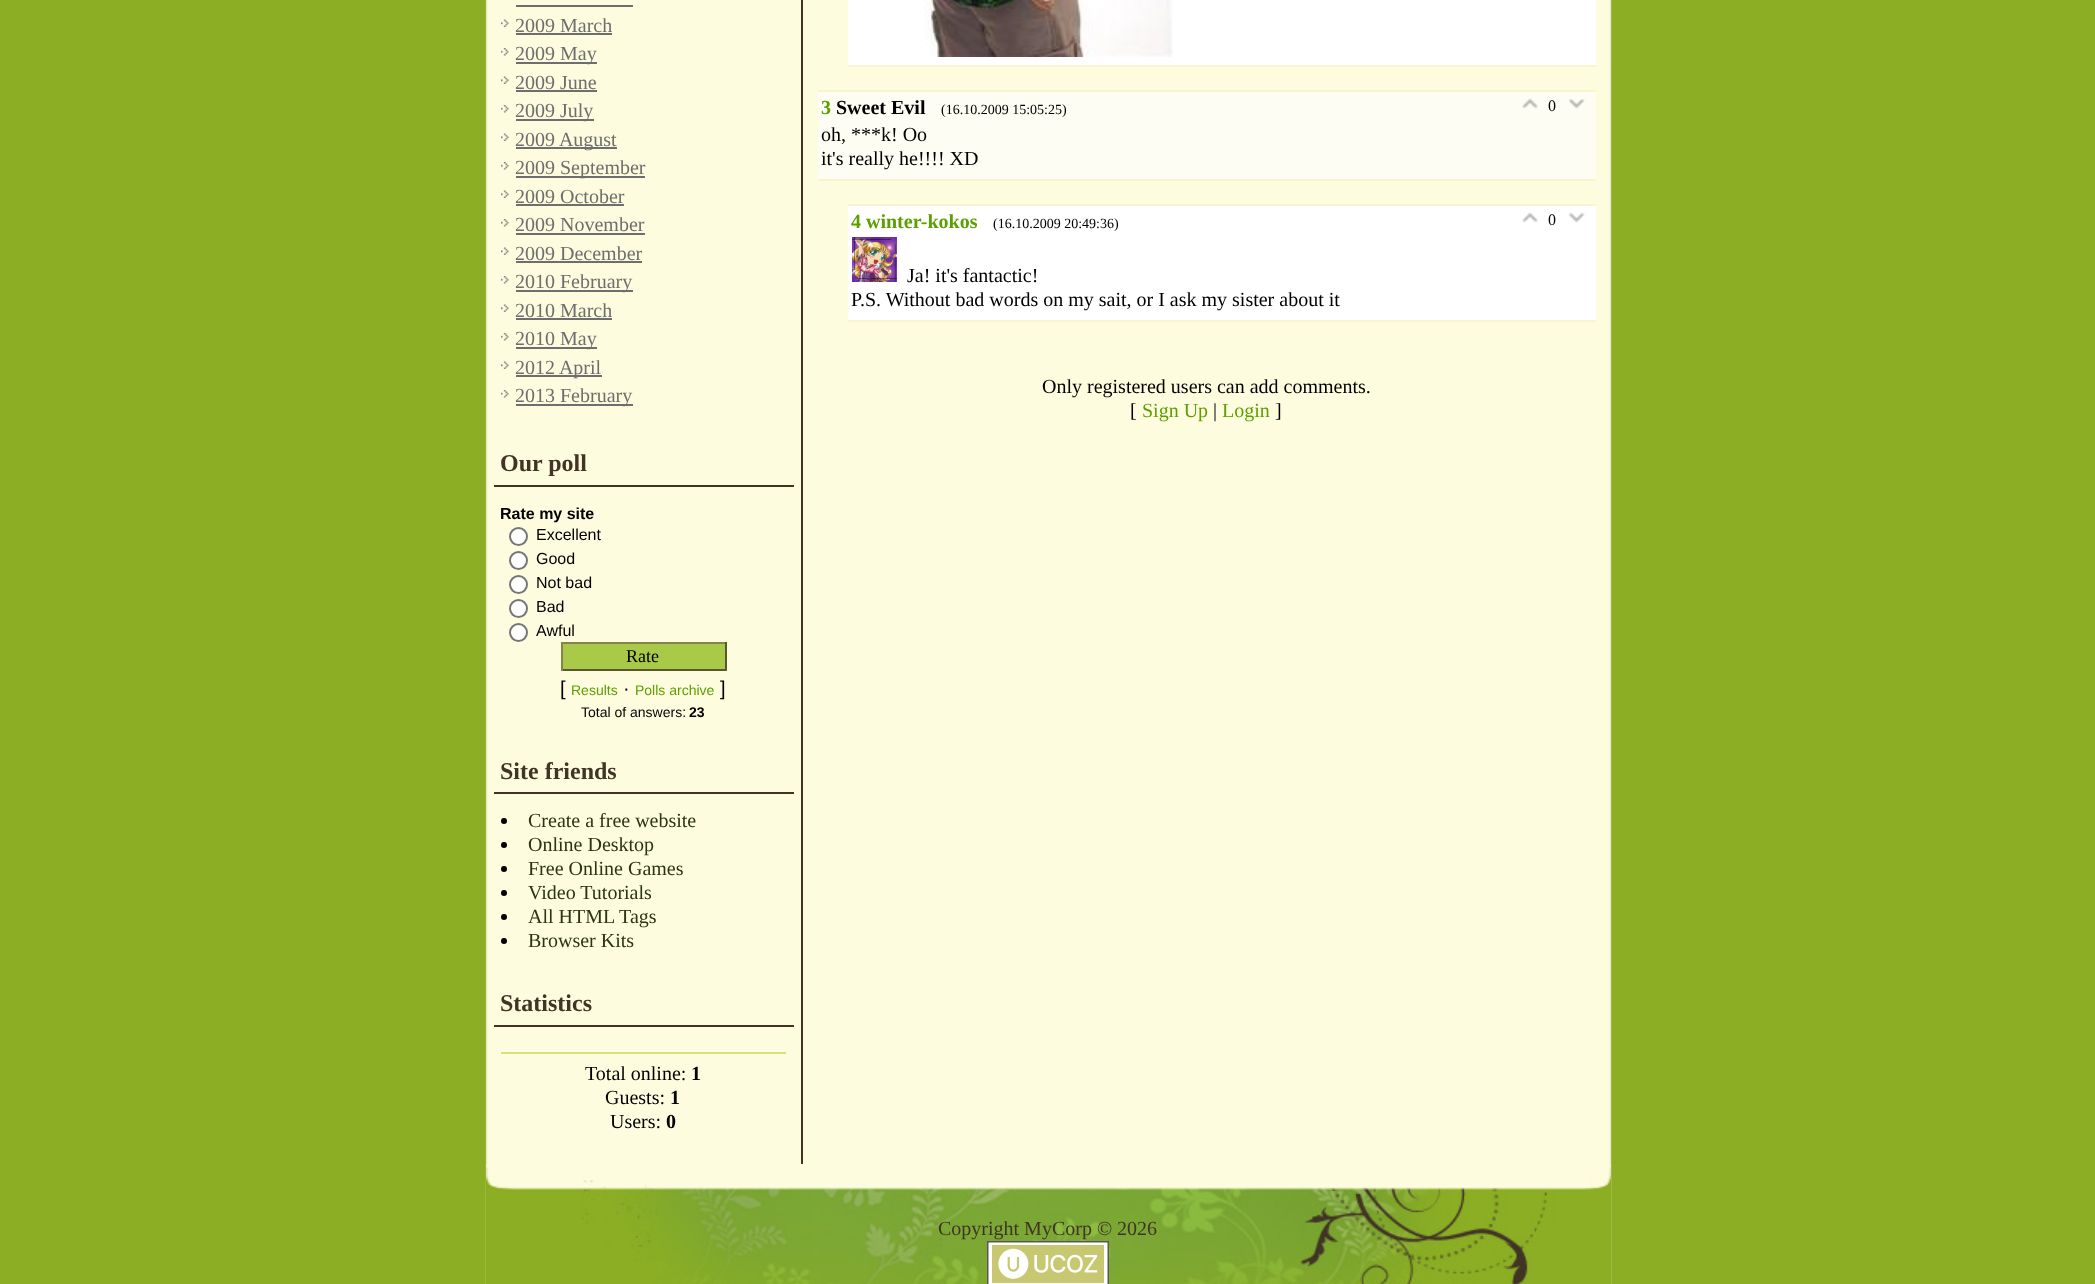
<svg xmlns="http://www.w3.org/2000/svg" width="2095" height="1284">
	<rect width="100%" height="100%" fill="#8BAE24" />
	<image x="485" y="0" width="1127" height="1284" href="assets/img1.png" />
	<rect x="801" y="0" width="2" height="1166" fill="#413425" />
	<rect x="516" y="5" width="117" height="2" fill="#6E6E6E" />
	<image x="501" y="19" width="8" height="8" href="assets/img2.png" />
	<text x="515" y="32" font-family="Liberation Serif" font-size="20" fill="#6E6E6E">2009 March</text>
	<rect x="516" y="33" width="96" height="2" fill="#6E6E6E" />
	<image x="501" y="48" width="8" height="8" href="assets/img3.png" />
	<rect x="516" y="62" width="81" height="2" fill="#6E6E6E" />
	<text x="515" y="60" font-family="Liberation Serif" font-size="20" fill="#6E6E6E">2009 May</text>
	<image x="501" y="76" width="8" height="8" href="assets/img2.png" />
	<text x="515" y="89" font-family="Liberation Serif" font-size="20" fill="#6E6E6E">2009 June</text>
	<rect x="516" y="90" width="81" height="2" fill="#6E6E6E" />
	<image x="501" y="105" width="8" height="8" href="assets/img3.png" />
	<rect x="516" y="119" width="78" height="2" fill="#6E6E6E" />
	<text x="515" y="117" font-family="Liberation Serif" font-size="20" fill="#6E6E6E">2009 July</text>
	<image x="501" y="133" width="8" height="8" href="assets/img2.png" />
	<rect x="516" y="147" width="101" height="2" fill="#6E6E6E" />
	<text x="515" y="146" font-family="Liberation Serif" font-size="20" fill="#6E6E6E">2009 August</text>
	<image x="501" y="162" width="8" height="8" href="assets/img3.png" />
	<rect x="516" y="176" width="129" height="2" fill="#6E6E6E" />
	<text x="515" y="174" font-family="Liberation Serif" font-size="20" fill="#6E6E6E">2009 September</text>
	<image x="501" y="190" width="8" height="8" href="assets/img2.png" />
	<text x="515" y="203" font-family="Liberation Serif" font-size="20" fill="#6E6E6E">2009 October</text>
	<rect x="516" y="204" width="108" height="2" fill="#6E6E6E" />
	<image x="501" y="219" width="8" height="8" href="assets/img3.png" />
	<text x="515" y="231" font-family="Liberation Serif" font-size="20" fill="#6E6E6E">2009 November</text>
	<rect x="516" y="233" width="129" height="2" fill="#6E6E6E" />
	<image x="501" y="247" width="8" height="8" href="assets/img2.png" />
	<text x="515" y="260" font-family="Liberation Serif" font-size="20" fill="#6E6E6E">2009 December</text>
	<rect x="516" y="261" width="126" height="2" fill="#6E6E6E" />
	<image x="501" y="276" width="8" height="8" href="assets/img3.png" />
	<rect x="516" y="290" width="117" height="2" fill="#6E6E6E" />
	<text x="515" y="288" font-family="Liberation Serif" font-size="20" fill="#6E6E6E">2010 February</text>
	<image x="501" y="304" width="8" height="8" href="assets/img2.png" />
	<text x="515" y="317" font-family="Liberation Serif" font-size="20" fill="#6E6E6E">2010 March</text>
	<rect x="516" y="318" width="96" height="2" fill="#6E6E6E" />
	<image x="501" y="333" width="8" height="8" href="assets/img3.png" />
	<rect x="516" y="347" width="81" height="2" fill="#6E6E6E" />
	<text x="515" y="345" font-family="Liberation Serif" font-size="20" fill="#6E6E6E">2010 May</text>
	<image x="501" y="361" width="8" height="8" href="assets/img2.png" />
	<rect x="516" y="375" width="86" height="2" fill="#6E6E6E" />
	<text x="515" y="374" font-family="Liberation Serif" font-size="20" fill="#6E6E6E">2012 April</text>
	<image x="501" y="390" width="8" height="8" href="assets/img3.png" />
	<rect x="516" y="404" width="117" height="2" fill="#6E6E6E" />
	<text x="515" y="402" font-family="Liberation Serif" font-size="20" fill="#6E6E6E">2013 February</text>
	<rect x="494" y="485" width="300" height="2" fill="#413425" />
	<text x="500" y="471" font-family="Liberation Serif" font-size="24" font-weight="700" fill="#413425">Our poll</text>
	<text x="500" y="519" font-family="Liberation Sans" font-size="16" font-weight="700" fill="#000000">Rate my site</text>
	<circle cx="518.5" cy="536.5" r="8.5" fill="#FFFFFF" stroke="#767676" stroke-width="2" />
	<text x="536" y="540" font-family="Liberation Sans" font-size="16" fill="#000000">Excellent</text>
	<circle cx="518.5" cy="560.5" r="8.5" fill="#FFFFFF" stroke="#767676" stroke-width="2" />
	<text x="536" y="564" font-family="Liberation Sans" font-size="16" fill="#000000">Good</text>
	<circle cx="518.5" cy="584.5" r="8.5" fill="#FFFFFF" stroke="#767676" stroke-width="2" />
	<text x="536" y="588" font-family="Liberation Sans" font-size="16" fill="#000000">Not bad</text>
	<circle cx="518.5" cy="608.5" r="8.5" fill="#FFFFFF" stroke="#767676" stroke-width="2" />
	<text x="536" y="612" font-family="Liberation Sans" font-size="16" fill="#000000">Bad</text>
	<circle cx="518.5" cy="632.5" r="8.5" fill="#FFFFFF" stroke="#767676" stroke-width="2" />
	<text x="536" y="636" font-family="Liberation Sans" font-size="16" fill="#000000">Awful</text>
	<rect x="563" y="644" width="162" height="25" fill="#A9C948" />
	<rect x="561" y="642" width="165" height="2" fill="#87844A" />
	<rect x="725" y="642" width="2" height="29" fill="#5A5831" />
	<rect x="561" y="669" width="165" height="2" fill="#5A5831" />
	<rect x="561" y="642" width="2" height="29" fill="#87844A" />
	<text x="626" y="662" font-family="Liberation Serif" font-size="18" fill="#000000">Rate</text>
	<text x="560" y="695" font-family="Liberation Sans" font-size="20" fill="#000000">[</text>
	<text x="571" y="695" font-family="Liberation Sans" font-size="14" fill="#5C9F00">Results</text>
	<text x="623" y="695" font-family="Liberation Sans" font-size="20" fill="#000000">·</text>
	<text x="635" y="695" font-family="Liberation Sans" font-size="14" fill="#5C9F00">Polls archive</text>
	<text x="720" y="695" font-family="Liberation Sans" font-size="20" fill="#000000">]</text>
	<text x="581" y="717" font-family="Liberation Sans" font-size="14" fill="#000000">Total of answers:</text>
	<text x="689" y="717" font-family="Liberation Sans" font-size="14" font-weight="700" fill="#000000">23</text>
	<rect x="494" y="792" width="300" height="2" fill="#413425" />
	<text x="500" y="779" font-family="Liberation Serif" font-size="24" font-weight="700" fill="#413425">Site friends</text>
	<circle cx="504" cy="821" r="3" fill="#000000" />
	<text x="528" y="827" font-family="Liberation Serif" font-size="20" fill="#2B3414">Create a free website</text>
	<circle cx="504" cy="845" r="3" fill="#000000" />
	<text x="528" y="851" font-family="Liberation Serif" font-size="20" fill="#2B3414">Online Desktop</text>
	<circle cx="504" cy="869" r="3" fill="#000000" />
	<text x="528" y="875" font-family="Liberation Serif" font-size="20" fill="#2B3414">Free Online Games</text>
	<circle cx="504" cy="893" r="3" fill="#000000" />
	<text x="528" y="899" font-family="Liberation Serif" font-size="20" fill="#2B3414">Video Tutorials</text>
	<circle cx="504" cy="917" r="3" fill="#000000" />
	<text x="528" y="923" font-family="Liberation Serif" font-size="20" fill="#2B3414">All HTML Tags</text>
	<circle cx="504" cy="941" r="3" fill="#000000" />
	<text x="528" y="947" font-family="Liberation Serif" font-size="20" fill="#2B3414">Browser Kits</text>
	<rect x="494" y="1025" width="300" height="2" fill="#413425" />
	<text x="500" y="1011" font-family="Liberation Serif" font-size="24" font-weight="700" fill="#413425">Statistics</text>
	<rect x="501" y="1052" width="285" height="2" fill="#D6E37D" />
	<text x="585" y="1080" font-family="Liberation Serif" font-size="20" fill="#000000">Total online:</text>
	<text x="691" y="1080" font-family="Liberation Serif" font-size="20" font-weight="700" fill="#000000">1</text>
	<text x="605" y="1104" font-family="Liberation Serif" font-size="20" fill="#000000">Guests:</text>
	<text x="670" y="1104" font-family="Liberation Serif" font-size="20" font-weight="700" fill="#000000">1</text>
	<text x="610" y="1128" font-family="Liberation Serif" font-size="20" fill="#000000">Users:</text>
	<text x="666" y="1128" font-family="Liberation Serif" font-size="20" font-weight="700" fill="#000000">0</text>
	<rect x="848" y="0" width="748" height="65" fill="#FFFFFF" />
	<rect x="848" y="65" width="748" height="2" fill="#F8F5CE" />
	<image x="924" y="0" width="249" height="57" href="assets/img4.png" />
	<rect x="818" y="92" width="778" height="87" fill="#FEFDF3" />
	<rect x="818" y="90" width="778" height="2" fill="#F8F5CE" />
	<rect x="818" y="179" width="778" height="2" fill="#F8F5CE" />
	<text x="821" y="114" font-family="Liberation Serif" font-size="20" font-weight="700" fill="#5C9F00">3</text>
	<text x="836" y="114" font-family="Liberation Serif" font-size="20" font-weight="700" fill="#000000">Sweet Evil</text>
	<text x="941" y="114" font-family="Liberation Serif" font-size="14" fill="#000000">(16.10.2009 15:05:25)</text>
	<image x="1522" y="98" width="16" height="11" href="assets/img5.png" />
	<text x="1548" y="111" font-family="Liberation Serif" font-size="16" fill="#000000">0</text>
	<image x="1569" y="99" width="16" height="10" href="assets/img6.png" />
	<g font-family="Liberation Serif" font-size="20" fill="#000000">
		<text x="821" y="141">oh, ***k! Оо</text>
		<text x="821" y="165">it's really he!!!! XD</text>
	</g>
	<rect x="848" y="206" width="748" height="114" fill="#FFFFFF" />
	<rect x="848" y="204" width="748" height="2" fill="#F8F5CE" />
	<rect x="848" y="320" width="748" height="2" fill="#F8F5CE" />
	<text x="851" y="228" font-family="Liberation Serif" font-size="20" font-weight="700" fill="#5C9F00">4 winter-kokos</text>
	<text x="993" y="228" font-family="Liberation Serif" font-size="14" fill="#000000">(16.10.2009 20:49:36)</text>
	<image x="1522" y="212" width="16" height="11" href="assets/img7.png" />
	<text x="1548" y="225" font-family="Liberation Serif" font-size="16" fill="#000000">0</text>
	<image x="1568" y="212" width="17" height="11" href="assets/img8.png" />
	<image x="852" y="237" width="45" height="45" href="assets/img9.png" />
	<g font-family="Liberation Serif" font-size="20" fill="#000000">
		<text x="907" y="282">Ja! it's fantactic!</text>
		<text x="851" y="306">P.S. Without bad words on my sait, or I ask my sister about it</text>
		<text x="1042" y="393">Only registered users can add comments.</text>
		<text x="1130" y="417">[</text>
	</g>
	<text x="1142" y="417" font-family="Liberation Serif" font-size="20" fill="#5C9F00">Sign Up</text>
	<text x="1213" y="417" font-family="Liberation Serif" font-size="20" fill="#000000">|</text>
	<text x="1222" y="417" font-family="Liberation Serif" font-size="20" fill="#5C9F00">Login</text>
	<text x="1275" y="417" font-family="Liberation Serif" font-size="20" fill="#000000">]</text>
	<image x="486" y="1164" width="1125" height="120" href="assets/img10.png" />
	<text x="938" y="1235" font-family="Liberation Serif" font-size="20" fill="#413425">Copyright MyCorp © 2026</text>
	<image x="987" y="1241" width="122" height="43" href="assets/img11.png" />
</svg>
